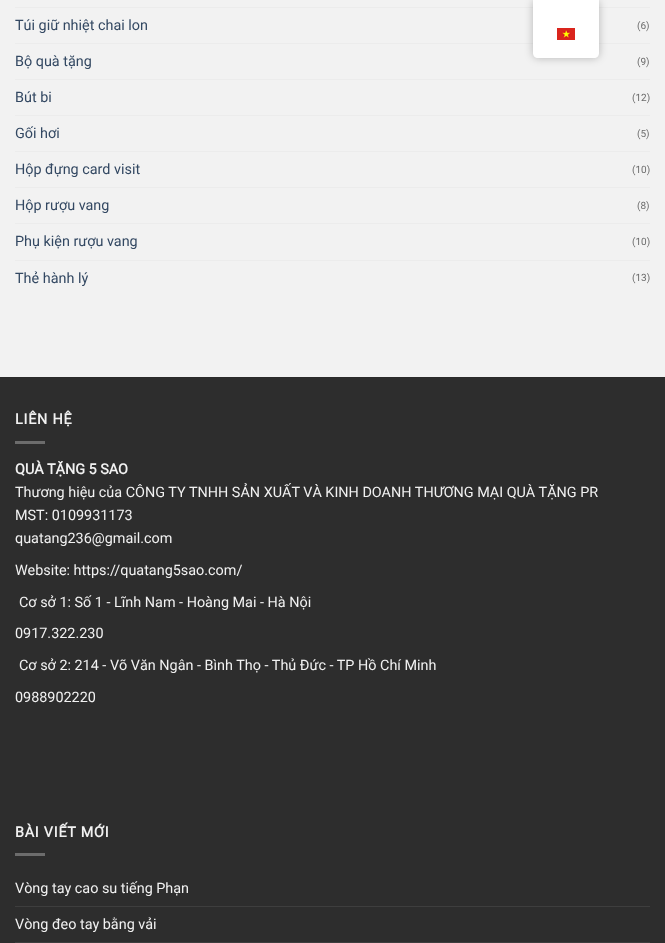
<svg xmlns="http://www.w3.org/2000/svg" width="665" height="943">
	<rect width="100%" height="100%" fill="#F2F2F2" />
	<rect x="15" y="7" width="635" height="1" fill="#ECECEC" />
	<rect x="15" y="43" width="635" height="1" fill="#ECECEC" />
	<rect x="533" y="0" width="66" height="58" rx="5" fill="#000000" fill-opacity="0.25" filter="blur(4px)" />
	<path d="M533 0H599V53C599 56 597 58 594 58H538C535 58 533 56 533 53Z" fill="#FFFFFF" />
	<image x="557" y="28" width="18" height="12" href="assets/img1.png" />
	<text x="15" y="30" font-family="Roboto" font-size="14.4" fill="#334862">Túi giữ nhiệt chai lon</text>
	<text x="637" y="29" font-family="Roboto" font-size="10" fill="#6C6C6C">(6)</text>
	<text x="15" y="66" font-family="Roboto" font-size="14.4" fill="#334862">Bộ quà tặng</text>
	<text x="637" y="65" font-family="Roboto" font-size="10" fill="#6C6C6C">(9)</text>
	<rect x="15" y="79" width="635" height="1" fill="#ECECEC" />
	<text x="15" y="102" font-family="Roboto" font-size="14.4" fill="#334862">Bút bi</text>
	<text x="632" y="101" font-family="Roboto" font-size="10" fill="#6C6C6C">(12)</text>
	<rect x="15" y="115" width="635" height="1" fill="#ECECEC" />
	<text x="15" y="138" font-family="Roboto" font-size="14.4" fill="#334862">Gối hơi</text>
	<text x="637" y="137" font-family="Roboto" font-size="10" fill="#6C6C6C">(5)</text>
	<rect x="15" y="151" width="635" height="1" fill="#ECECEC" />
	<text x="15" y="174" font-family="Roboto" font-size="14.4" fill="#334862">Hộp đựng card visit</text>
	<text x="632" y="173" font-family="Roboto" font-size="10" fill="#6C6C6C">(10)</text>
	<rect x="15" y="187" width="635" height="1" fill="#ECECEC" />
	<text x="15" y="210" font-family="Roboto" font-size="14.4" fill="#334862">Hộp rượu vang</text>
	<text x="637" y="209" font-family="Roboto" font-size="10" fill="#6C6C6C">(8)</text>
	<rect x="15" y="223" width="635" height="1" fill="#ECECEC" />
	<text x="15" y="246" font-family="Roboto" font-size="14.4" fill="#334862">Phụ kiện rượu vang</text>
	<text x="632" y="245" font-family="Roboto" font-size="10" fill="#6C6C6C">(10)</text>
	<rect x="15" y="260" width="635" height="1" fill="#ECECEC" />
	<text x="15" y="283" font-family="Roboto" font-size="14.4" fill="#334862">Thẻ hành lý</text>
	<text x="632" y="281" font-family="Roboto" font-size="10" fill="#6C6C6C">(13)</text>
	<rect x="0" y="378" width="665" height="565" fill="#2D2D2D" />
	<rect x="0" y="377" width="665" height="1" fill="#2B2B2B" />
	<text x="15" y="424" font-family="Roboto" font-size="14.4" font-weight="700" letter-spacing="0.75" fill="#F1F1F1">LIÊN HỆ</text>
	<rect x="15" y="441" width="30" height="3" fill="#6C6C6C" />
	<text x="15" y="474" font-family="Roboto" font-size="14.4" font-weight="700" fill="#F1F1F1">QUÀ TẶNG 5 SAO</text>
	<g font-family="Roboto" font-size="14.4" fill="#F1F1F1">
		<text x="15" y="497">Thương hiệu của CÔNG TY TNHH SẢN XUẤT VÀ KINH DOANH THƯƠNG MẠI QUÀ TẶNG PR</text>
		<text x="15" y="520">MST: 0109931173</text>
		<text x="15" y="543">quatang236@gmail.com</text>
		<text x="15" y="575">Website: https://quatang5sao.com/</text>
		<text x="19" y="607">Cơ sở 1: Số 1 - Lĩnh Nam - Hoàng Mai - Hà Nội</text>
		<text x="15" y="638">0917.322.230</text>
		<text x="19" y="670">Cơ sở 2: 214 - Võ Văn Ngân - Bình Thọ - Thủ Đức - TP Hồ Chí Minh</text>
		<text x="15" y="702">0988902220</text>
	</g>
	<text x="15" y="837" font-family="Roboto" font-size="14.4" font-weight="700" letter-spacing="0.75" fill="#F1F1F1">BÀI VIẾT MỚI</text>
	<rect x="15" y="853" width="30" height="3" fill="#6C6C6C" />
	<text x="15" y="893" font-family="Roboto" font-size="14.4" fill="#F1F1F1">Vòng tay cao su tiếng Phạn</text>
	<rect x="15" y="906" width="635" height="1" fill="#3E3E3E" />
	<text x="15" y="929" font-family="Roboto" font-size="14.4" fill="#F1F1F1">Vòng đeo tay bằng vải</text>
	<rect x="15" y="942" width="635" height="1" fill="#3E3E3E" />
</svg>
